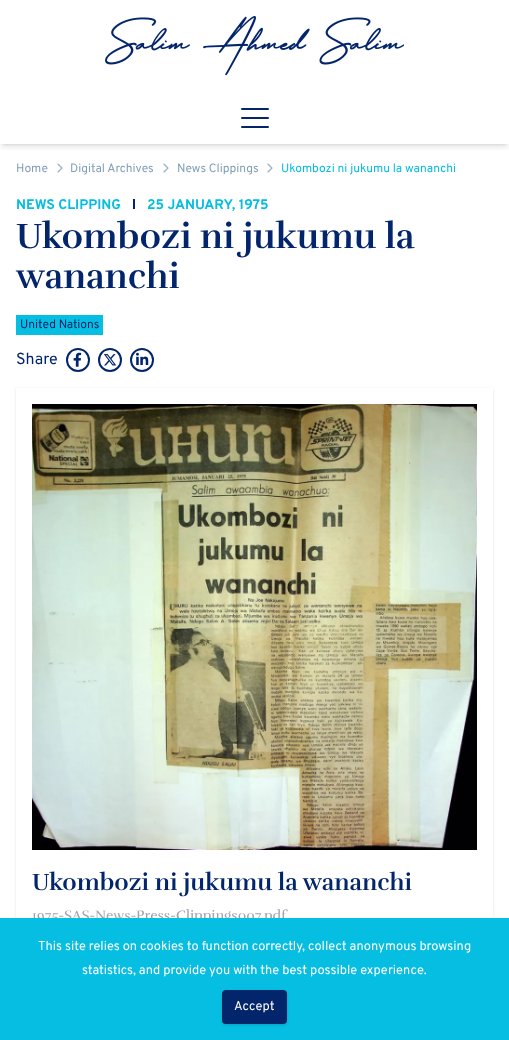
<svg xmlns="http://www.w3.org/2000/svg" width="509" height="1040">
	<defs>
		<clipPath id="clip1"><rect x="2" y="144" width="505" height="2" /></clipPath>
		<clipPath id="clip2"><rect x="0" y="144" width="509" height="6" /></clipPath>
		<clipPath id="clip3"><path d="M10 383H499V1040H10ZM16 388H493V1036H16Z" clip-rule="evenodd" /></clipPath>
	</defs>
	<rect width="100%" height="100%" fill="#FFFFFF" />
	<g clip-path="url(#clip1)">
		<rect x="2" y="4" width="505" height="140" fill="#000000" fill-opacity="0.1" filter="blur(2px)" />
	</g>
	<g clip-path="url(#clip2)">
		<rect x="1" y="5" width="507" height="142" fill="#000000" fill-opacity="0.1" filter="blur(3px)" />
	</g>
	<image x="105" y="16" width="299" height="60" href="assets/img1.png" />
	<rect x="241" y="108" width="28" height="2" rx="1" fill="#03256C" />
	<rect x="241" y="117" width="28" height="2" rx="1" fill="#03256C" />
	<rect x="241" y="126" width="28" height="2" rx="1" fill="#03256C" />
	<text x="16" y="172" font-family="Overpass" font-size="12" fill="#809FB8">Home</text>
	<image x="57" y="163" width="6" height="10" href="assets/img2.png" />
	<text x="70" y="172" font-family="Overpass" font-size="12" fill="#809FB8">Digital Archives</text>
	<image x="163" y="163" width="6" height="10" href="assets/img2.png" />
	<text x="177" y="172" font-family="Overpass" font-size="12" fill="#809FB8">News Clippings</text>
	<image x="267" y="163" width="6" height="10" href="assets/img2.png" />
	<text x="281" y="172" font-family="Overpass" font-size="12" fill="#06BEE1">Ukombozi ni jukumu la wananchi</text>
	<text x="16" y="209" font-family="Overpass" font-size="14" font-weight="700" fill="#06BEE1">NEWS CLIPPING</text>
	<rect x="133" y="199" width="2" height="10" fill="#03256C" />
	<text x="147" y="209" font-family="Overpass" font-size="14" font-weight="700" fill="#06BEE1">25 JANUARY, 1975</text>
	<g font-family="Rufina" font-size="36" font-weight="700" fill="#03256C">
		<text x="16" y="248">Ukombozi ni jukumu la</text>
		<text x="16" y="288">wananchi</text>
	</g>
	<rect x="16" y="315" width="87" height="20" fill="#06BEE1" />
	<text x="20" y="328" font-family="Overpass" font-size="12" fill="#03256C">United Nations</text>
	<text x="16" y="364" font-family="Overpass" font-size="16" fill="#03256C">Share</text>
	<circle cx="78" cy="360" r="11" fill="none" stroke="#03256C" stroke-width="2" />
	<image x="73" y="352" width="9" height="15" href="assets/img3.png" />
	<circle cx="110" cy="360" r="11" fill="none" stroke="#03256C" stroke-width="2" />
	<image x="103" y="354" width="14" height="12" href="assets/img4.png" />
	<circle cx="142" cy="360" r="11" fill="none" stroke="#03256C" stroke-width="2" />
	<image x="136" y="352" width="13" height="13" href="assets/img5.png" />
	<g clip-path="url(#clip3)">
		<rect x="16" y="389" width="477" height="648" fill="#000000" fill-opacity="0.1" filter="blur(1.5px)" />
	</g>
	<image x="32" y="404" width="445" height="446" href="assets/img6.png" />
	<text x="32" y="890" font-family="Rufina" font-size="24" font-weight="700" fill="#03256C">Ukombozi ni jukumu la wananchi</text>
	<text x="32" y="920" font-family="Rufina" font-size="14" fill="#9CA3AF">1975-SAS-News-Press-Clippings007.pdf</text>
	<rect x="0" y="918" width="509" height="122" fill="#06BEE1" />
	<g font-family="Overpass" font-size="12.8" fill="#FFFFFF">
		<text x="38" y="950">This site relies on cookies to function correctly, collect anonymous browsing</text>
		<text x="82" y="974">statistics, and provide you with the best possible experience.</text>
	</g>
	<rect x="223" y="992" width="63" height="32" rx="3" fill="#000000" fill-opacity="0.1" filter="blur(1px)" />
	<rect x="222" y="991" width="65" height="34" rx="4" fill="#000000" fill-opacity="0.1" filter="blur(1.5px)" />
	<rect x="222" y="990" width="65" height="34" rx="4" fill="#03256C" />
	<text x="234" y="1010" font-family="Overpass" font-size="12.8" fill="#FFFFFF">Accept</text>
</svg>
